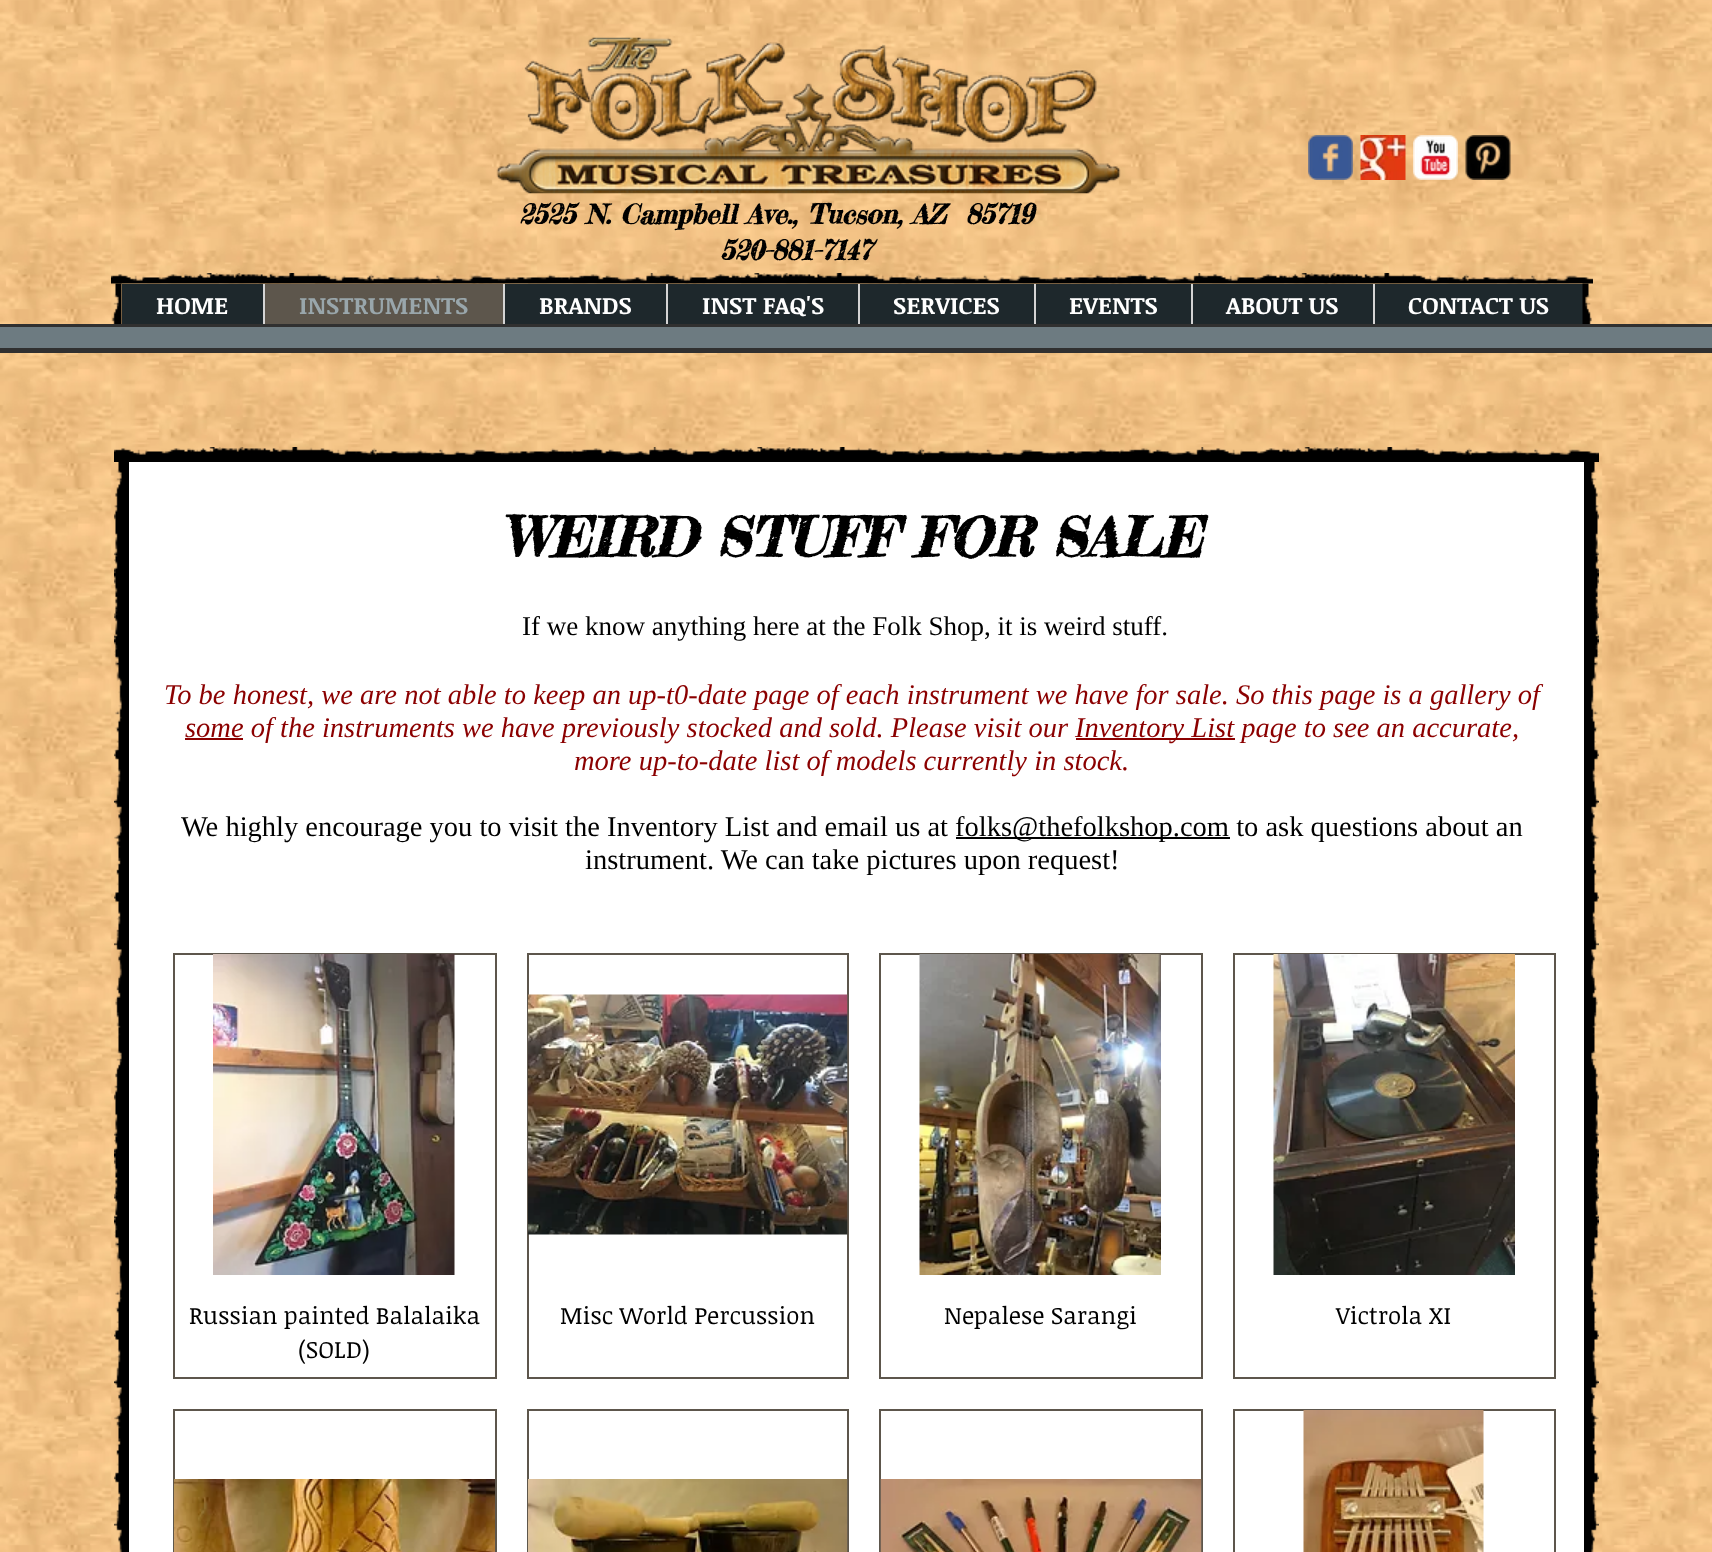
<svg xmlns="http://www.w3.org/2000/svg" width="1712" height="1552">
	<rect width="100%" height="100%" fill="#FFFFFF" />
	<image x="0" y="0" width="1712" height="1552" href="assets/img1.png" />
	<image x="496" y="37" width="625" height="157" href="assets/img2.png" />
	<image x="1308" y="135" width="45" height="45" href="assets/img3.png" />
	<image x="1360" y="135" width="46" height="45" href="assets/img4.png" />
	<image x="1413" y="135" width="45" height="45" href="assets/img5.png" />
	<image x="1465" y="135" width="46" height="45" href="assets/img6.png" />
	<g font-family="Fredericka the Great" font-size="27" font-weight="700" font-style="italic" fill="#000000">
		<text x="519" y="224" xml:space="preserve">2525 N. Campbell Ave., Tucson, AZ  85719</text>
		<text x="720" y="260">520-881-7147</text>
	</g>
	<image x="111" y="273" width="1482" height="11" href="assets/img7.png" />
	<image x="112" y="283" width="10" height="41" href="assets/img8.png" />
	<rect x="122" y="284" width="1461" height="40" fill="#1E282C" />
	<text x="156" y="314" font-family="Noticia Text" font-size="24" font-weight="700" fill="#FFFFFF">HOME</text>
	<rect x="265" y="284" width="238" height="40" fill="#5D564C" />
	<rect x="263" y="284" width="2" height="42" fill="#D4D4D4" />
	<text x="299" y="314" font-family="Noticia Text" font-size="24" font-weight="700" fill="#99A6AB">INSTRUMENTS</text>
	<rect x="503" y="284" width="2" height="42" fill="#D4D4D4" />
	<text x="539" y="314" font-family="Noticia Text" font-size="24" font-weight="700" fill="#FFFFFF">BRANDS</text>
	<rect x="666" y="284" width="2" height="42" fill="#D4D4D4" />
	<text x="702" y="314" font-family="Noticia Text" font-size="24" font-weight="700" fill="#FFFFFF">INST FAQ'S</text>
	<rect x="858" y="284" width="2" height="42" fill="#D4D4D4" />
	<text x="893" y="314" font-family="Noticia Text" font-size="24" font-weight="700" fill="#FFFFFF">SERVICES</text>
	<rect x="1034" y="284" width="2" height="42" fill="#D4D4D4" />
	<text x="1069" y="314" font-family="Noticia Text" font-size="24" font-weight="700" fill="#FFFFFF">EVENTS</text>
	<rect x="1191" y="284" width="2" height="42" fill="#D4D4D4" />
	<text x="1226" y="314" font-family="Noticia Text" font-size="24" font-weight="700" fill="#FFFFFF">ABOUT US</text>
	<rect x="1373" y="284" width="2" height="42" fill="#D4D4D4" />
	<text x="1408" y="314" font-family="Noticia Text" font-size="24" font-weight="700" fill="#FFFFFF">CONTACT US</text>
	<image x="1582" y="283" width="10" height="41" href="assets/img9.png" />
	<rect x="0" y="324" width="1712" height="3" fill="#303030" />
	<rect x="0" y="348" width="1712" height="5" fill="#303030" />
	<rect x="0" y="327" width="1712" height="21" fill="#6D7B81" />
	<rect x="129" y="462" width="1455" height="1090" fill="#FFFFFF" />
	<image x="114" y="447" width="1485" height="15" href="assets/img10.png" />
	<image x="114" y="462" width="15" height="1090" href="assets/img11.png" />
	<image x="1584" y="462" width="15" height="1090" href="assets/img12.png" />
	<text x="502" y="557" font-family="Fredericka the Great" font-size="54" font-weight="700" font-style="italic" fill="#000000">WEIRD STUFF FOR SALE</text>
	<text x="522" y="635" font-family="Liberation Serif" font-size="27" fill="#000000">If we know anything here at the Folk Shop, it is weird stuff.</text>
	<text x="164" y="704" font-family="Liberation Serif" font-size="28.5" font-style="italic" fill="#8B0000">To be honest, we are not able to keep an up-t0-date page of each instrument we have for sale. So this page is a gallery of</text>
	<rect x="185" y="738" width="58" height="2" fill="#8B0000" />
	<text x="185" y="737" font-family="Liberation Serif" font-size="28.5" font-style="italic" fill="#8B0000">some of the instruments we have previously stocked and sold. Please visit our</text>
	<rect x="1076" y="738" width="159" height="2" fill="#8B0000" />
	<g font-family="Liberation Serif" font-size="28.5" font-style="italic" fill="#8B0000">
		<text x="1075" y="737">Inventory List page to see an accurate,</text>
		<text x="574" y="770">more up-to-date list of models currently in stock.</text>
	</g>
	<text x="181" y="836" font-family="Liberation Serif" font-size="28.5" fill="#000000">We highly encourage you to visit the Inventory List and email us at</text>
	<rect x="956" y="837" width="274" height="2" fill="#000000" />
	<g font-family="Liberation Serif" font-size="28.5" fill="#000000">
		<text x="955" y="836">folks@thefolkshop.com to ask questions about an</text>
		<text x="585" y="869">instrument. We can take pictures upon request!</text>
	</g>
	<rect x="174" y="954" width="322" height="424" fill="none" stroke="#5D564C" stroke-width="2" />
	<image x="213" y="954" width="242" height="321" href="assets/img13.png" />
	<g font-family="Noticia Text" font-size="24" fill="#000000">
		<text x="189" y="1324">Russian painted Balalaika</text>
		<text x="298" y="1358">(SOLD)</text>
	</g>
	<rect x="528" y="954" width="320" height="424" fill="none" stroke="#5D564C" stroke-width="2" />
	<image x="528" y="994" width="320" height="241" href="assets/img14.png" />
	<text x="560" y="1324" font-family="Noticia Text" font-size="24" fill="#000000">Misc World Percussion</text>
	<rect x="880" y="954" width="322" height="424" fill="none" stroke="#5D564C" stroke-width="2" />
	<image x="919" y="954" width="242" height="321" href="assets/img15.png" />
	<text x="944" y="1324" font-family="Noticia Text" font-size="24" fill="#000000">Nepalese Sarangi</text>
	<rect x="1234" y="954" width="321" height="424" fill="none" stroke="#5D564C" stroke-width="2" />
	<image x="1273" y="954" width="242" height="321" href="assets/img16.png" />
	<text x="1336" y="1324" font-family="Noticia Text" font-size="24" fill="#000000">Victrola XI</text>
	<rect x="174" y="1410" width="322" height="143" fill="none" stroke="#5D564C" stroke-width="2" />
	<image x="174" y="1479" width="321" height="73" href="assets/img17.png" />
	<rect x="528" y="1410" width="320" height="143" fill="none" stroke="#5D564C" stroke-width="2" />
	<image x="528" y="1479" width="320" height="73" href="assets/img18.png" />
	<rect x="880" y="1410" width="322" height="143" fill="none" stroke="#5D564C" stroke-width="2" />
	<image x="880" y="1479" width="322" height="73" href="assets/img19.png" />
	<rect x="1234" y="1410" width="321" height="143" fill="none" stroke="#5D564C" stroke-width="2" />
	<image x="1303" y="1410" width="181" height="142" href="assets/img20.png" />
</svg>
